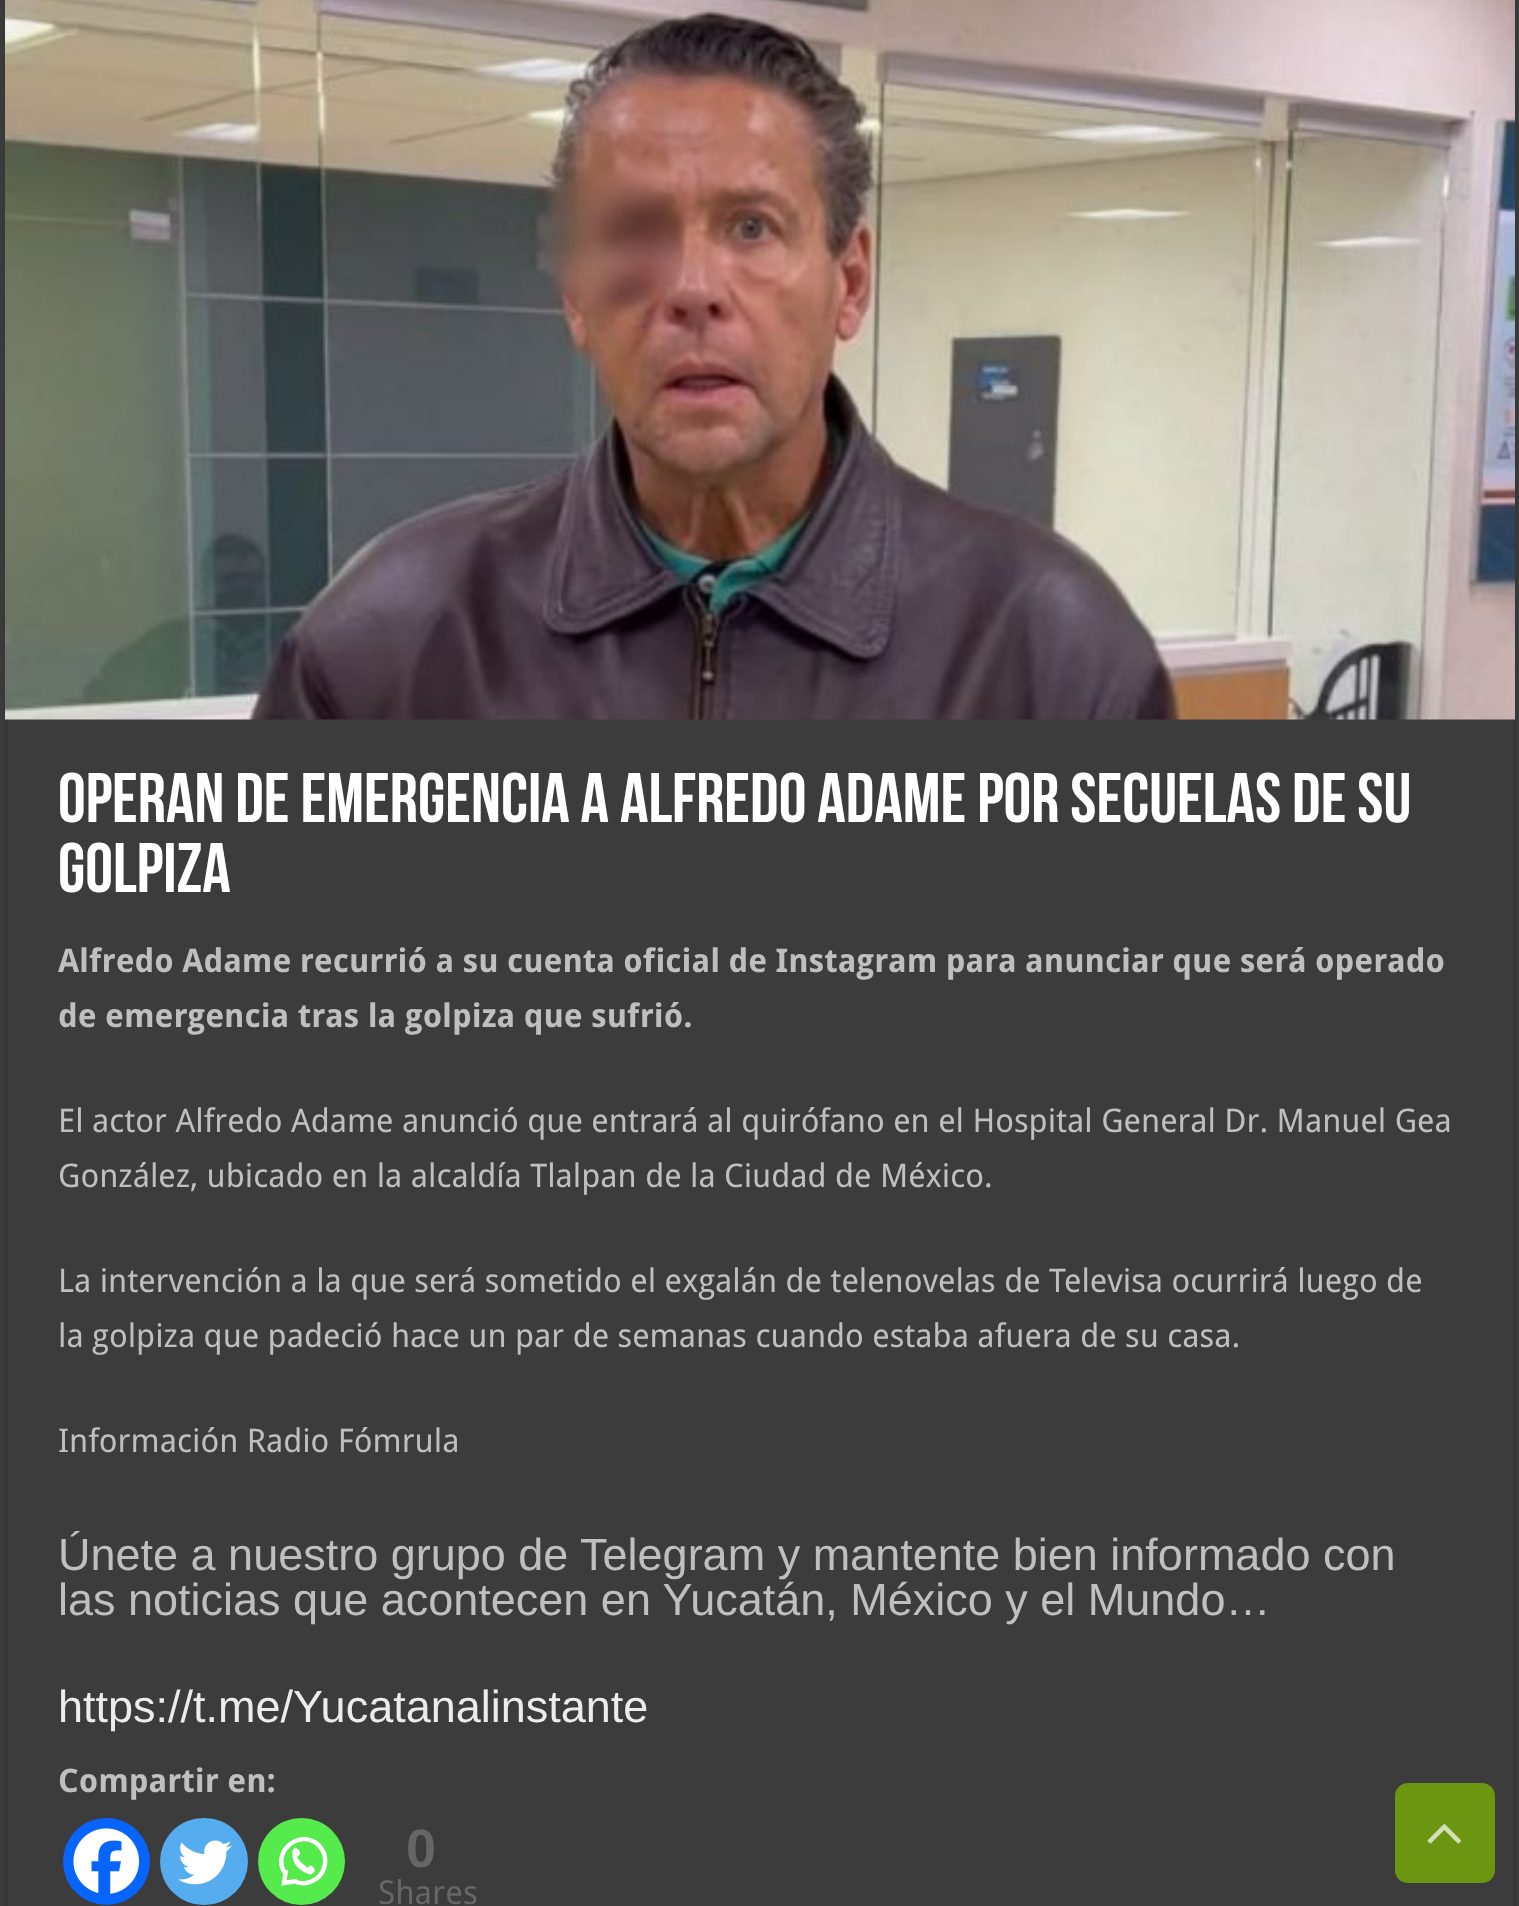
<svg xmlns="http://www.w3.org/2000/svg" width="1519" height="1906">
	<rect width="100%" height="100%" fill="#3C3C3C" />
	<rect x="8" y="-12" width="1505" height="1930" fill="#2A2A2A" filter="blur(4px)" />
	<rect x="8" y="719" width="1505" height="1187" fill="#3C3C3C" />
	<image x="5" y="0" width="1510" height="720" href="assets/img1.png" />
	<g font-family="Bebas Neue" font-size="70" font-weight="700" fill="#FFFFFF">
		<text x="58" y="822">Operan de emergencia a Alfredo Adame por secuelas de su</text>
		<text x="58" y="892">golpiza</text>
	</g>
	<g font-family="Droid Sans" font-size="32.5" font-weight="700" fill="#BFBFBF">
		<text x="58" y="972">Alfredo Adame recurrió a su cuenta oficial de Instagram para anunciar que será operado</text>
		<text x="58" y="1027">de emergencia tras la golpiza que sufrió.</text>
	</g>
	<g font-family="Droid Sans" font-size="32.5" fill="#BFBFBF">
		<text x="58" y="1132">El actor Alfredo Adame anunció que entrará al quirófano en el Hospital General Dr. Manuel Gea</text>
		<text x="58" y="1187">González, ubicado en la alcaldía Tlalpan de la Ciudad de México.</text>
		<text x="58" y="1292">La intervención a la que será sometido el exgalán de telenovelas de Televisa ocurrirá luego de</text>
		<text x="58" y="1347">la golpiza que padeció hace un par de semanas cuando estaba afuera de su casa.</text>
		<text x="58" y="1452">Información Radio Fómrula</text>
	</g>
	<g font-family="Liberation Sans" font-size="45" fill="#BFBFBF">
		<text x="58" y="1570">Únete a nuestro grupo de Telegram y mantente bien informado con</text>
		<text x="58" y="1615">las noticias que acontecen en Yucatán, México y el Mundo…</text>
	</g>
	<text x="58" y="1722" font-family="Liberation Sans" font-size="45" fill="#ECECEC">https://t.me/Yucatanalinstante</text>
	<text x="58" y="1792" font-family="Droid Sans" font-size="32.5" font-weight="700" fill="#BFBFBF">Compartir en:</text>
	<circle cx="106.5" cy="1861.5" r="43.5" fill="#0765FE" />
	<image x="73" y="1828" width="67" height="66" href="assets/img2.png" />
	<rect x="160" y="1818" width="88" height="87" rx="43.5" fill="#55ACEE" />
	<image x="178" y="1840" width="54" height="45" href="assets/img3.png" />
	<circle cx="301.5" cy="1861.5" r="43.5" fill="#55EB4C" />
	<path d="M296 1882C307.5 1886 320.5 1879.5 324 1868C326 1862 325.5 1855 322 1849.5C306.5 1824.5 268.5 1849.5 285.5 1874M286 1870L284 1883L297 1881" fill="none" stroke="#FFFFFF" stroke-width="4.4" />
	<path d="M292.5 1850.5C291 1862 297 1870 310 1874.5C321 1872 310 1861 308 1868C302 1863.5 298.5 1860 297 1857C305.5 1852.5 294.5 1846 294.5 1848" fill="#FFFFFF" />
	<text x="406" y="1867" font-family="Liberation Sans" font-size="54" font-weight="700" fill="#666666">0</text>
	<text x="378" y="1904" font-family="Droid Sans" font-size="33" fill="#666666">Shares</text>
	<rect x="1395" y="1783" width="100" height="100" rx="13" fill="#6C9612" />
	<image x="1427" y="1824" width="34" height="20" href="assets/img4.png" />
</svg>
